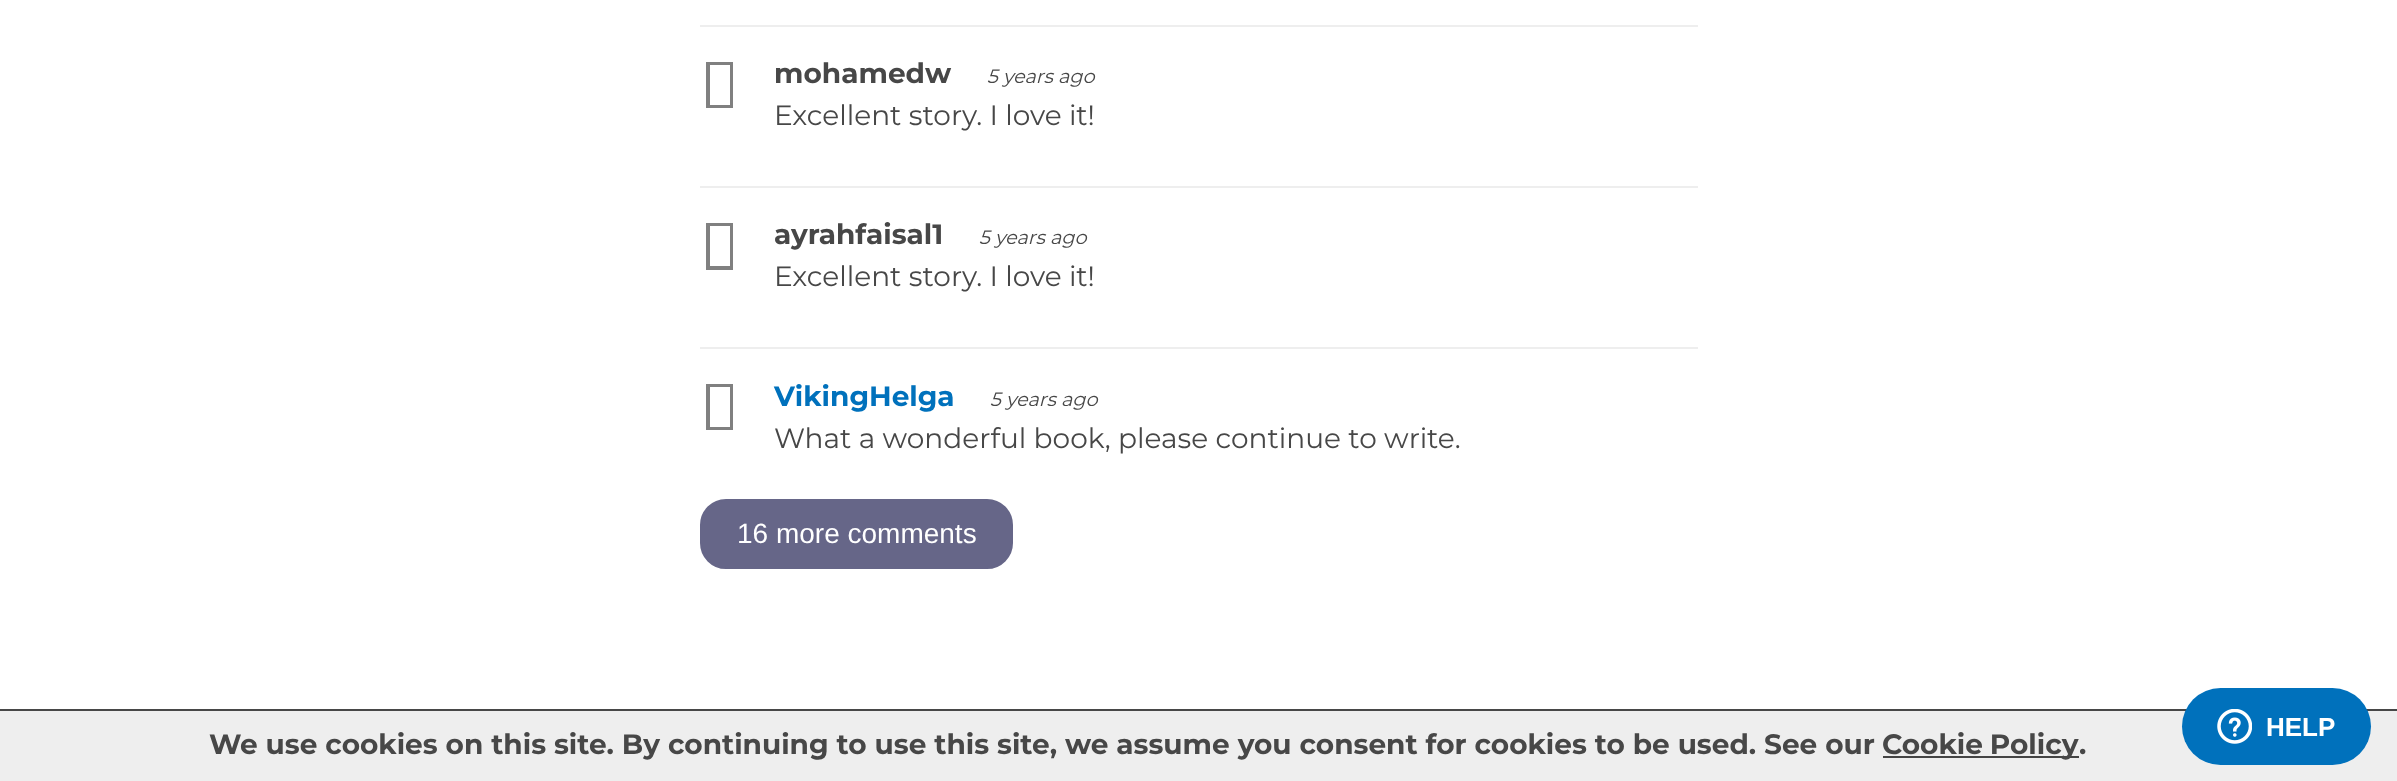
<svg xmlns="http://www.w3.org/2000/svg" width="2397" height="781">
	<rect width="100%" height="100%" fill="#FFFFFF" />
	<rect x="700" y="25" width="998" height="2" fill="#EEEEEE" />
	<path d="M706 108V62H733V108ZM710 105H730V65H710Z" fill="#808080" />
	<text x="774" y="83" font-family="Montserrat" font-size="28" font-weight="700" fill="#474747">mohamedw</text>
	<text x="987" y="83" font-family="Montserrat" font-size="19.25" font-style="italic" fill="#474747">5 years ago</text>
	<text x="774" y="125" font-family="Montserrat" font-size="28" fill="#474747">Excellent story. I love it!</text>
	<rect x="700" y="186" width="998" height="2" fill="#EEEEEE" />
	<path d="M706 270V223H733V270ZM710 266H730V226H710Z" fill="#808080" />
	<text x="774" y="244" font-family="Montserrat" font-size="28" font-weight="700" fill="#474747">ayrahfaisal1</text>
	<text x="979" y="244" font-family="Montserrat" font-size="19.25" font-style="italic" fill="#474747">5 years ago</text>
	<text x="774" y="286" font-family="Montserrat" font-size="28" fill="#474747">Excellent story. I love it!</text>
	<rect x="700" y="347" width="998" height="2" fill="#EEEEEE" />
	<path d="M706 430V384H733V430ZM710 427H730V387H710Z" fill="#808080" />
	<text x="774" y="406" font-family="Montserrat" font-size="28" font-weight="700" fill="#0071BC">VikingHelga</text>
	<text x="990" y="406" font-family="Montserrat" font-size="19.25" font-style="italic" fill="#474747">5 years ago</text>
	<text x="774" y="448" font-family="Montserrat" font-size="28" fill="#474747">What a wonderful book, please continue to write.</text>
	<rect x="701" y="500" width="311" height="68" rx="25" fill="#666688" stroke="#666688" stroke-width="2" />
	<text x="737" y="543" font-family="Liberation Sans" font-size="28" fill="#FFFFFF">16 more comments</text>
	<rect x="0" y="709" width="2397" height="2" fill="#474747" />
	<rect x="0" y="711" width="2397" height="70" fill="#EEEEEE" />
	<text x="209" y="754" font-family="Montserrat" font-size="28" font-weight="700" fill="#474747">We use cookies on this site. By continuing to use this site, we assume you consent for cookies to be used. See our</text>
	<rect x="1883" y="756" width="196" height="2" fill="#444444" />
	<g font-family="Montserrat" font-size="28" font-weight="700" fill="#474747">
		<text x="1882" y="754" word-spacing="-1">Cookie Policy</text>
		<text x="2079" y="754">.</text>
	</g>
	<rect x="2182" y="688" width="189" height="77" rx="38.5" fill="#0071BC" />
	<image x="2217" y="709" width="35" height="35" href="assets/img1.png" />
	<text x="2266" y="736" font-family="Liberation Sans" font-size="26" font-weight="700" fill="#FFFFFF">HELP</text>
</svg>
